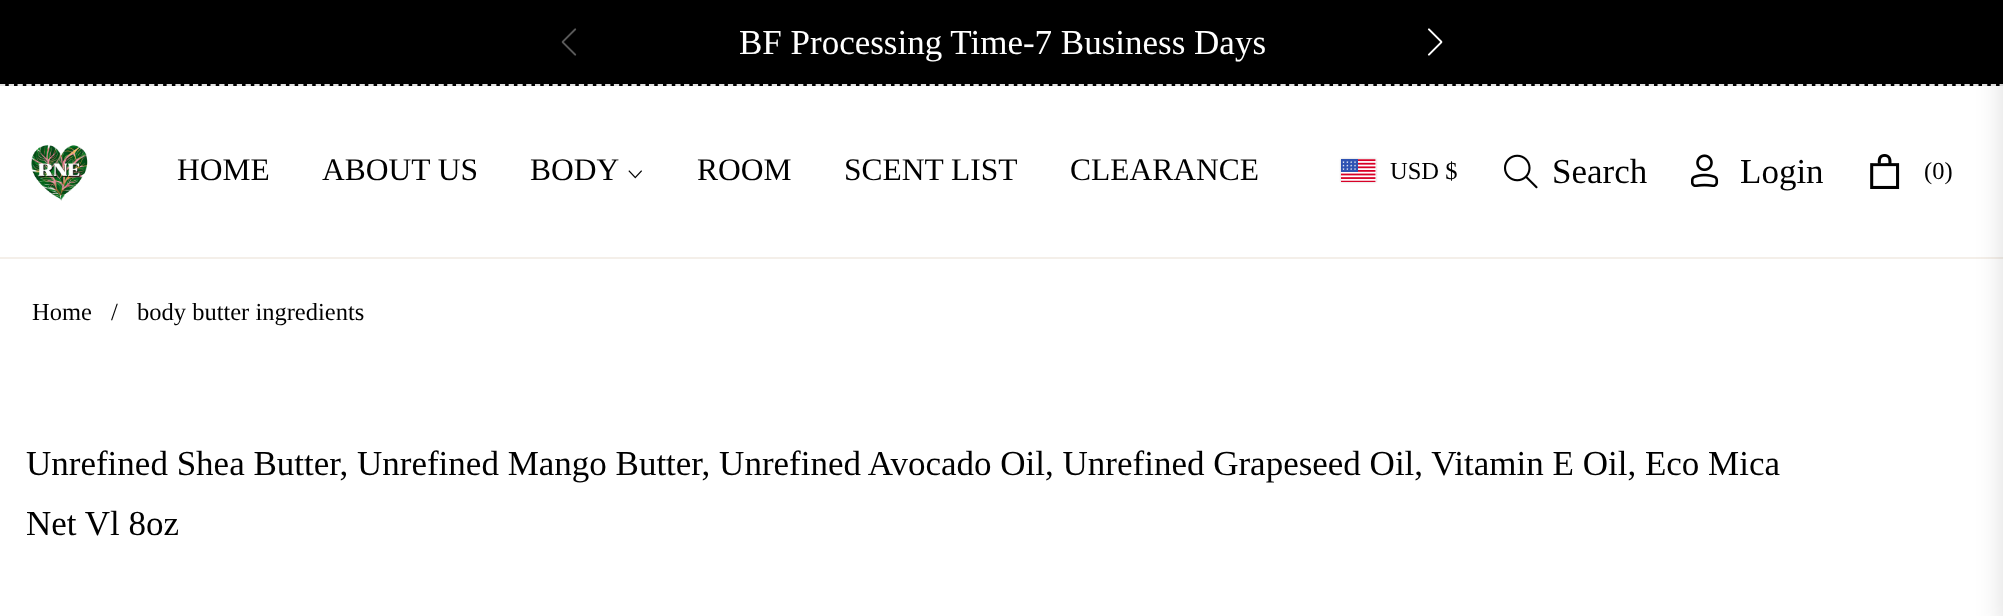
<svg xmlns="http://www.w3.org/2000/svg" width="2003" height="616">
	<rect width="100%" height="100%" fill="#FFFFFF" />
	<rect x="0" y="0" width="2003" height="86" fill="#000000" />
	<path d="M0 85H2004" fill="none" stroke="#E1E1E1" stroke-width="1.8" stroke-dasharray="5.25 3.52" />
	<image x="561" y="28" width="16" height="28" href="assets/img1.png" />
	<text x="739" y="54" font-family="Liberation Serif" font-size="35" fill="#FFFFFF">BF Processing Time-7 Business Days</text>
	<image x="1427" y="28" width="16" height="28" href="assets/img2.png" />
	<image x="31" y="144" width="57" height="57" href="assets/img3.png" />
	<g font-family="Liberation Serif" font-size="31.5" fill="#000000">
		<text x="177" y="180">HOME</text>
		<text x="322" y="180">ABOUT US</text>
		<text x="530" y="180">BODY</text>
	</g>
	<image x="628" y="170" width="14" height="9" href="assets/img4.png" />
	<g font-family="Liberation Serif" font-size="31.5" fill="#000000">
		<text x="697" y="180">ROOM</text>
		<text x="844" y="180">SCENT LIST</text>
		<text x="1070" y="180">CLEARANCE</text>
	</g>
	<rect x="1341" y="159" width="35" height="23" fill="#000000" fill-opacity="0.2" filter="blur(1px)" />
	<image x="1341" y="159" width="35" height="23" href="assets/img5.png" />
	<text x="1390" y="179" font-family="Liberation Serif" font-size="24.5" fill="#000000">USD $</text>
	<image x="1504" y="154" width="34" height="35" href="assets/img6.png" />
	<text x="1552" y="183" font-family="Liberation Serif" font-size="35" fill="#000000">Search</text>
	<image x="1691" y="154" width="28" height="33" href="assets/img7.png" />
	<text x="1740" y="183" font-family="Liberation Serif" font-size="35" fill="#000000">Login</text>
	<image x="1870" y="154" width="30" height="35" href="assets/img8.png" />
	<text x="1924" y="179" font-family="Liberation Serif" font-size="24.5" fill="#000000">(0)</text>
	<rect x="0" y="257" width="2003" height="2" fill="#F4EFE9" />
	<rect x="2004" y="14" width="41" height="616" fill="#000000" fill-opacity="0.15" filter="blur(14px)" />
	<g font-family="Liberation Serif" font-size="24.5" fill="#000000">
		<text x="32" y="320">Home</text>
		<text x="111" y="320">/</text>
		<text x="137" y="320">body butter ingredients</text>
	</g>
	<g font-family="Liberation Serif" font-size="35" fill="#000000">
		<text x="26" y="475">Unrefined Shea Butter, Unrefined Mango Butter, Unrefined Avocado Oil, Unrefined Grapeseed Oil, Vitamin E Oil, Eco Mica</text>
		<text x="26" y="535">Net Vl 8oz</text>
	</g>
</svg>
